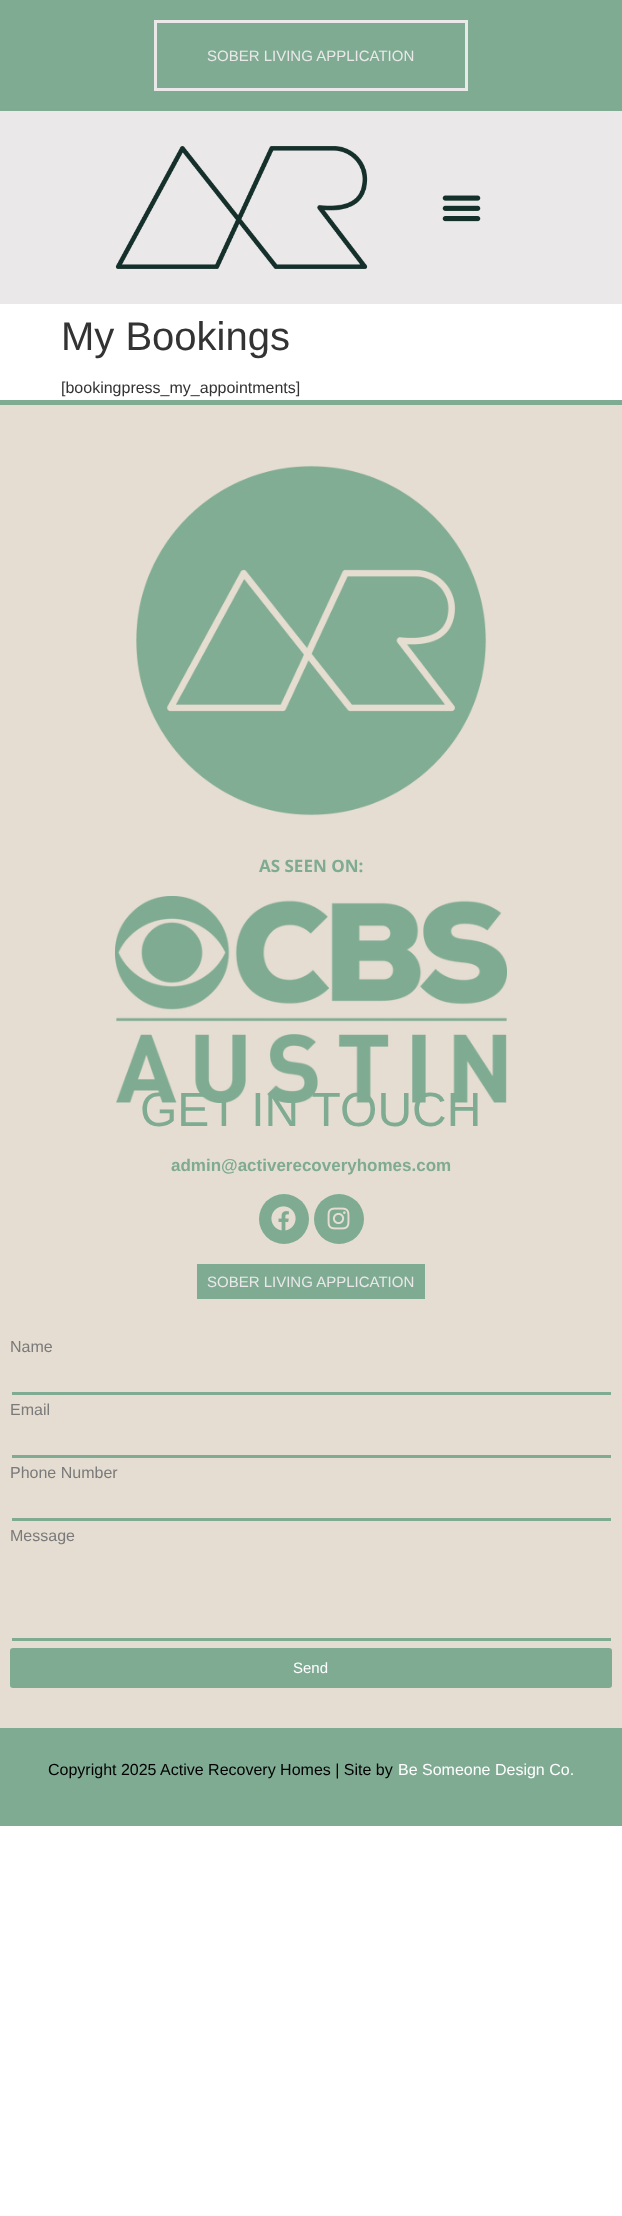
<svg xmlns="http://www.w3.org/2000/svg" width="622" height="2216">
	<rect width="100%" height="100%" fill="#FFFFFF" />
	<rect x="0" y="0" width="622" height="111" fill="#7FAB93" />
	<rect x="155.5" y="21.5" width="311" height="68" fill="none" stroke="#EAE8E9" stroke-width="3" />
	<text x="207" y="61" font-family="Liberation Sans" font-size="15" fill="#EAE8E9">SOBER LIVING APPLICATION</text>
	<rect x="0" y="111" width="622" height="193" fill="#EAE8E9" />
	<image x="115" y="146" width="253" height="123" href="assets/img1.png" />
	<image x="442" y="195" width="39" height="27" href="assets/img2.png" />
	<text x="61" y="350" font-family="Liberation Sans" font-size="40" fill="#333333">My Bookings</text>
	<text x="61" y="393" font-family="Liberation Sans" font-size="16" fill="#333333">[bookingpress_my_appointments]</text>
	<rect x="0" y="405" width="622" height="1323" fill="#E5DDD1" />
	<rect x="0" y="400" width="622" height="5" fill="#7FAB93" />
	<image x="136" y="465" width="351" height="351" href="assets/img3.png" />
	<text x="259" y="872" font-family="Open Sans" font-size="17" font-weight="700" fill="#7FAB93">AS SEEN ON:</text>
	<image x="115" y="896" width="392" height="207" href="assets/img4.png" />
	<text x="140" y="1126" font-family="Liberation Sans" font-size="48" fill="#7FAB93">GET IN TOUCH</text>
	<text x="171" y="1171" font-family="Liberation Sans" font-size="17" font-weight="700" fill="#7FAB93">admin@activerecoveryhomes.com</text>
	<circle cx="284" cy="1219" r="25" fill="#7FAB93" />
	<image x="271" y="1206" width="25" height="25" href="assets/img5.png" />
	<circle cx="339" cy="1219" r="25" fill="#7FAB93" />
	<image x="327" y="1207" width="23" height="23" href="assets/img6.png" />
	<rect x="197" y="1264" width="228" height="35" fill="#7FAB93" />
	<text x="207" y="1287" font-family="Liberation Sans" font-size="15" fill="#EAE8E9">SOBER LIVING APPLICATION</text>
	<text x="10" y="1352" font-family="Liberation Sans" font-size="16" fill="#7A7A7A">Name</text>
	<rect x="12" y="1392" width="599" height="3" fill="#7FAB93" />
	<text x="10" y="1415" font-family="Liberation Sans" font-size="16" fill="#7A7A7A">Email</text>
	<rect x="12" y="1455" width="599" height="3" fill="#7FAB93" />
	<text x="10" y="1478" font-family="Liberation Sans" font-size="16" fill="#7A7A7A">Phone Number</text>
	<rect x="12" y="1518" width="599" height="3" fill="#7FAB93" />
	<text x="10" y="1541" font-family="Liberation Sans" font-size="16" fill="#7A7A7A">Message</text>
	<rect x="12" y="1638" width="599" height="3" fill="#7FAB93" />
	<rect x="10" y="1648" width="602" height="40" rx="3" fill="#7FAB93" />
	<text x="293" y="1673" font-family="Liberation Sans" font-size="15" fill="#FFFFFF">Send</text>
	<rect x="0" y="1728" width="622" height="98" fill="#7FAB93" />
	<text x="48" y="1775" font-family="Liberation Sans" font-size="16" fill="#000000">Copyright 2025 Active Recovery Homes | Site by</text>
	<text x="398" y="1775" font-family="Liberation Sans" font-size="16" fill="#FFFFFF">Be Someone Design Co.</text>
</svg>
